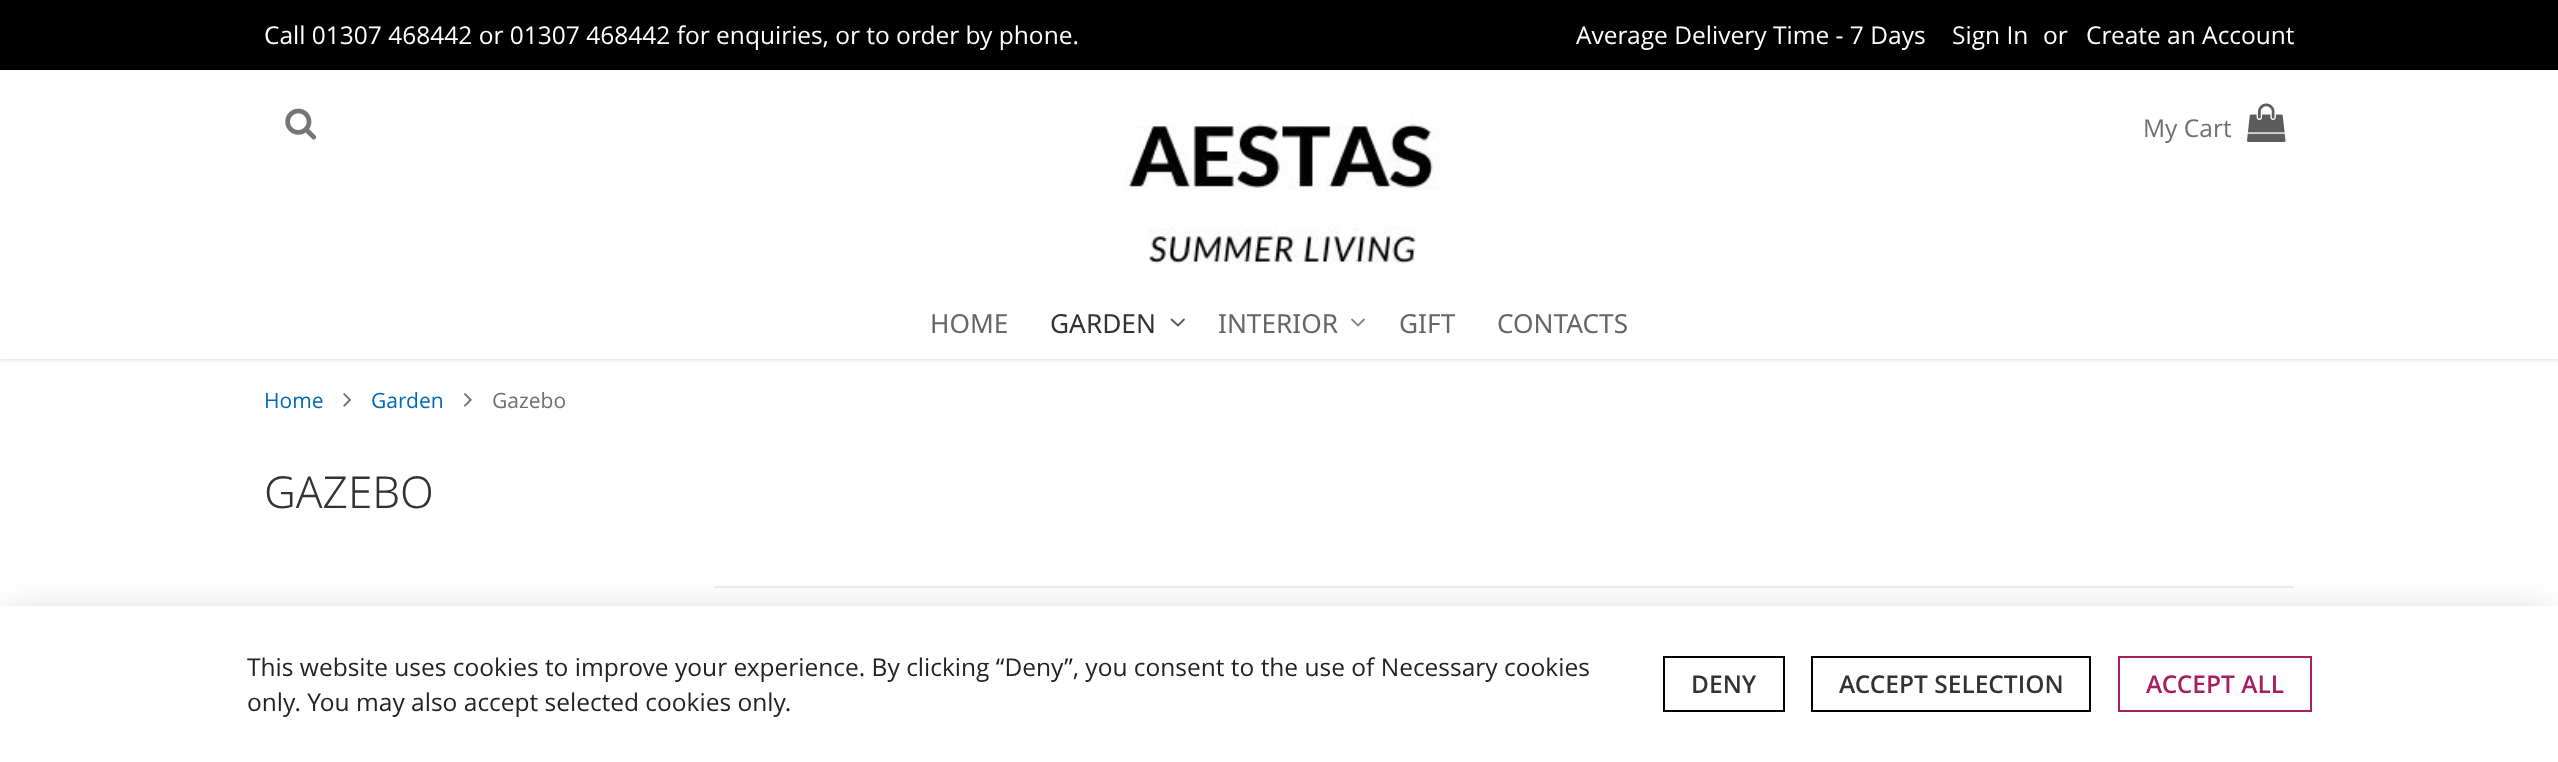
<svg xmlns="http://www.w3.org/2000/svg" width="2558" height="762">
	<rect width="100%" height="100%" fill="#FFFFFF" />
	<rect x="0" y="0" width="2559" height="359" fill="#000000" fill-opacity="0.2" filter="blur(2.5px)" />
	<rect x="0" y="70" width="2558" height="289" fill="#FFFFFF" />
	<rect x="0" y="0" width="2558" height="70" fill="#000000" />
	<g font-family="Open Sans" font-size="24.5" fill="#FFFFFF">
		<text x="264" y="44">Call 01307 468442 or 01307 468442 for enquiries, or to order by phone.</text>
		<text x="1576" y="44">Average Delivery Time - 7 Days</text>
		<text x="1952" y="44">Sign In</text>
		<text x="2043" y="44">or</text>
		<text x="2086" y="44">Create an Account</text>
	</g>
	<image x="285" y="108" width="32" height="32" href="assets/img1.png" />
	<image x="1125" y="114" width="315" height="151" href="assets/img2.png" />
	<text x="2143" y="137" font-family="Open Sans" font-size="24.5" fill="#707070">My Cart</text>
	<image x="2247" y="103" width="39" height="39" href="assets/img3.png" />
	<text x="930" y="333" font-family="Noto Sans" font-size="26.25" fill="#666666">HOME</text>
	<text x="1050" y="333" font-family="Noto Sans" font-size="26.25" fill="#333333">GARDEN</text>
	<path d="M1184 319.5L1178 325.5L1171.5 319.5" fill="none" stroke="#595959" stroke-width="1.8" stroke-linecap="round" stroke-linejoin="round" />
	<text x="1218" y="333" font-family="Noto Sans" font-size="26.25" fill="#666666">INTERIOR</text>
	<path d="M1364 319.5L1358 325.5L1352 319.5" fill="none" stroke="#858585" stroke-width="1.8" stroke-linecap="round" stroke-linejoin="round" />
	<g font-family="Noto Sans" font-size="26.25" fill="#666666">
		<text x="1399" y="333">GIFT</text>
		<text x="1497" y="333">CONTACTS</text>
	</g>
	<text x="264" y="408" font-family="Open Sans" font-size="21" fill="#006BB4">Home</text>
	<image x="343" y="393" width="9" height="14" href="assets/img4.png" />
	<text x="371" y="408" font-family="Open Sans" font-size="21" fill="#006BB4">Garden</text>
	<image x="464" y="393" width="8" height="14" href="assets/img5.png" />
	<text x="492" y="408" font-family="Open Sans" font-size="21" fill="#707070">Gazebo</text>
	<text x="264" y="508" font-family="Noto Sans" font-size="44" font-weight="300" fill="#333333">GAZEBO</text>
	<rect x="714" y="586" width="1580" height="2" fill="#EEEEEE" />
	<rect x="9" y="614" width="2541" height="140" fill="#000000" fill-opacity="0.2" filter="blur(17.5px)" />
	<rect x="0" y="606" width="2558" height="156" fill="#FFFFFF" />
	<g font-family="Open Sans" font-size="24.5" fill="#222222">
		<text x="247" y="676">This website uses cookies to improve your experience. By clicking “Deny”, you consent to the use of Necessary cookies</text>
		<text x="247" y="711">only. You may also accept selected cookies only.</text>
	</g>
	<rect x="1664" y="657" width="120" height="54" fill="none" stroke="#000000" stroke-width="2" />
	<text x="1691" y="693" font-family="Open Sans" font-size="24.5" font-weight="600" fill="#333333">DENY</text>
	<rect x="1812" y="657" width="278" height="54" fill="none" stroke="#000000" stroke-width="2" />
	<text x="1839" y="693" font-family="Open Sans" font-size="24.5" font-weight="600" fill="#333333">ACCEPT SELECTION</text>
	<rect x="2119" y="657" width="192" height="54" fill="none" stroke="#A5205F" stroke-width="2" />
	<text x="2146" y="693" font-family="Open Sans" font-size="24.5" font-weight="600" fill="#A5205F">ACCEPT ALL</text>
</svg>
